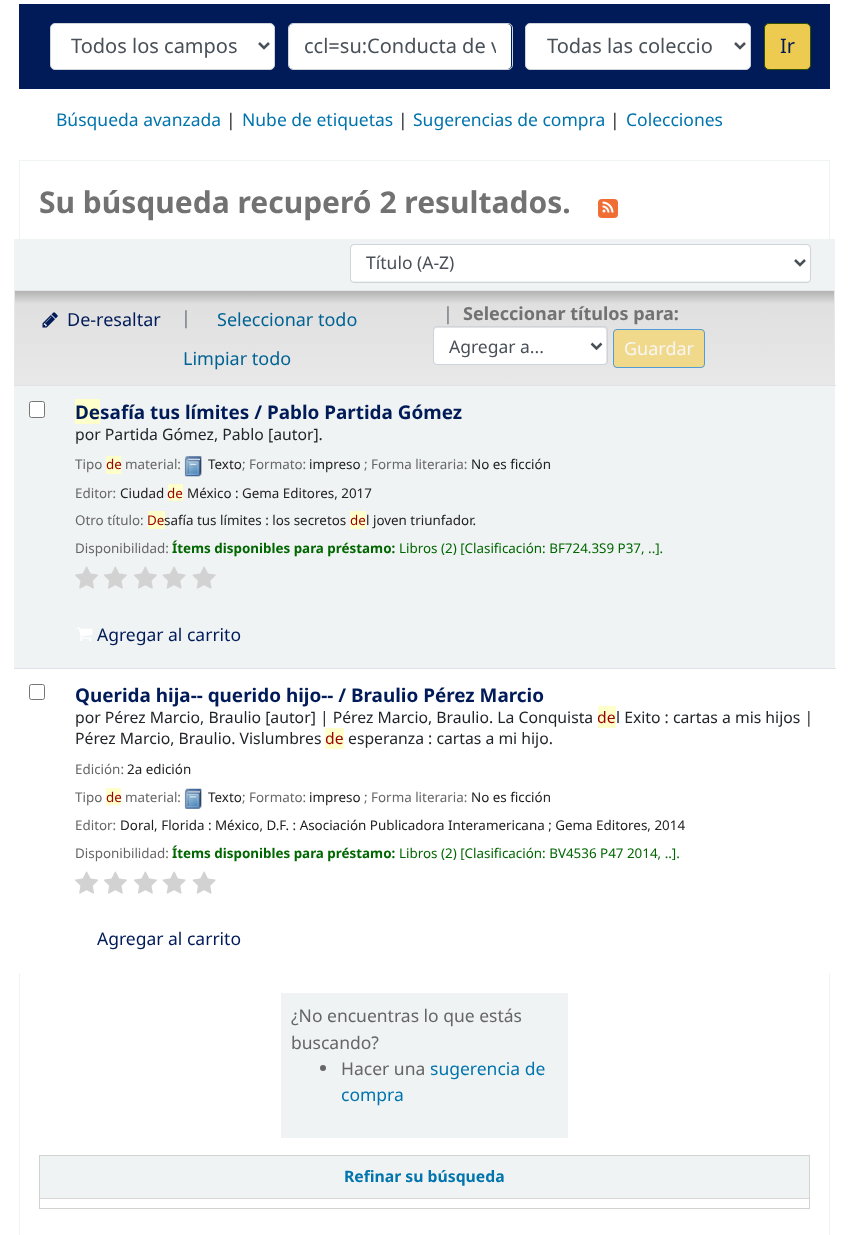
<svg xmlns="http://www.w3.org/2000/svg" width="848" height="1235">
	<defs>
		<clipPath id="clip1"><rect x="304" y="33" width="192" height="27" /></clipPath>
		<linearGradient id="g1" gradientUnits="userSpaceOnUse" x1="424" y1="197" x2="424" y2="291"><stop offset="0" stop-color="#B2B2B2" /><stop offset="0.14" stop-color="#E0E0E0" /><stop offset="1" stop-color="#E8E8E8" /></linearGradient>
		<linearGradient id="g2" gradientUnits="userSpaceOnUse" x1="424" y1="291" x2="424" y2="385"><stop offset="0" stop-color="#B2B2B2" /><stop offset="0.14" stop-color="#E0E0E0" /><stop offset="1" stop-color="#E8E8E8" /></linearGradient>
	</defs>
	<rect width="100%" height="100%" fill="#FFFFFF" />
	<rect x="19" y="4" width="811" height="85" fill="#001B58" />
	<rect x="50.5" y="23.5" width="224" height="46" rx="4.5" fill="#FFFFFF" stroke="#CED4DA" />
	<path d="M259 43L264 48L269 43" fill="none" stroke="#495057" stroke-width="2.5" />
	<text x="71" y="53" font-family="Noto Sans" font-size="20" fill="#495057">Todos los campos</text>
	<rect x="289" y="24" width="222" height="45" rx="4" fill="#FFFFFF" />
	<rect x="288.5" y="23.5" width="224" height="46" rx="4.5" fill="none" stroke="#CED4DA" />
	<g clip-path="url(#clip1)">
		<text x="304" y="53" font-family="Noto Sans" font-size="20" fill="#495057">ccl=su:Conducta de v</text>
	</g>
	<rect x="525.5" y="23.5" width="225" height="46" rx="4.5" fill="#FFFFFF" stroke="#CED4DA" />
	<path d="M735 43L740 48L745 43" fill="none" stroke="#495057" stroke-width="2.5" />
	<text x="547" y="53" font-family="Noto Sans" font-size="20" fill="#495057">Todas las coleccio</text>
	<rect x="764.5" y="23.5" width="46" height="46" rx="4.5" fill="#EDCA50" stroke="#335000" />
	<text x="780" y="53" font-family="Noto Sans" font-size="20" fill="#001B58">Ir</text>
	<text x="56" y="126" font-family="Noto Sans" font-size="17.5" fill="#0074AD">Búsqueda avanzada</text>
	<text x="226" y="126" font-family="Noto Sans" font-size="17.5" fill="#212529">|</text>
	<text x="242" y="126" font-family="Noto Sans" font-size="17.5" fill="#0074AD">Nube de etiquetas</text>
	<text x="398" y="126" font-family="Noto Sans" font-size="17.5" fill="#212529">|</text>
	<text x="413" y="126" font-family="Noto Sans" font-size="17.5" fill="#0074AD">Sugerencias de compra</text>
	<text x="610" y="126" font-family="Noto Sans" font-size="17.5" fill="#212529">|</text>
	<text x="626" y="126" font-family="Noto Sans" font-size="17.5" fill="#0074AD">Colecciones</text>
	<rect x="19.5" y="160.5" width="810" height="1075" fill="none" stroke="#F0F3F3" />
	<text x="39" y="213" font-family="Noto Sans" font-size="30" font-weight="700" fill="#727272">Su búsqueda recuperó 2 resultados.</text>
	<rect x="598" y="199" width="20" height="19" rx="4" fill="#F06D34" />
	<image x="602" y="201" width="12" height="12" href="assets/img1.png" />
	<rect x="14" y="239" width="821" height="51" fill="#F0F3F3" />
	<rect x="351" y="245" width="459" height="36" rx="2.5" fill="#FFFFFF" />
	<rect x="350.5" y="244.5" width="460" height="38" rx="3.5" fill="none" stroke="#CED4DA" />
	<path d="M795 260L800 265L805 260" fill="none" stroke="#495057" stroke-width="2.5" />
	<text x="366" y="269" font-family="Noto Sans" font-size="17.5" fill="#495057">Título (A-Z)</text>
	<rect x="14" y="290" width="821" height="1" fill="url(#g1)" />
	<rect x="15" y="291" width="819" height="94" fill="url(#g2)" />
	<rect x="834" y="290" width="1" height="95" fill="#E8E8E8" />
	<rect x="14" y="290" width="1" height="95" fill="#E8E8E8" />
	<image x="42" y="312" width="16" height="16" href="assets/img2.png" />
	<text x="67" y="326" font-family="Noto Sans" font-size="18" fill="#001B58">De-resaltar</text>
	<text x="181" y="324" font-family="Noto Sans" font-size="18" fill="#6C757D">|</text>
	<g font-family="Noto Sans" font-size="18" fill="#006394">
		<text x="217" y="326">Seleccionar todo</text>
		<text x="183" y="365">Limpiar todo</text>
	</g>
	<text x="443" y="320" font-family="Noto Sans" font-size="18" fill="#6C757D">|</text>
	<text x="463" y="320" font-family="Noto Sans" font-size="18" font-weight="700" fill="#727272">Seleccionar títulos para:</text>
	<rect x="434" y="328" width="172" height="36" rx="2.5" fill="#FFFFFF" />
	<rect x="433.5" y="326.5" width="174" height="38" rx="3.5" fill="none" stroke="#CED4DA" />
	<path d="M591.5 343.5L596.5 348.5L601.5 343.5" fill="none" stroke="#495057" stroke-width="2.5" />
	<text x="449" y="353" font-family="Noto Sans" font-size="17.5" fill="#495057">Agregar a...</text>
	<rect x="613" y="329" width="92" height="39" rx="4" fill="#FFFFFF" fill-opacity="0.65" />
	<rect x="613" y="329" width="92" height="39" rx="4" fill="#EDCA50" fill-opacity="0.65" />
	<rect x="613.5" y="329.5" width="91" height="38" rx="3.5" fill="none" stroke="#007BFF" stroke-opacity="0.65" />
	<text x="624" y="355" font-family="Noto Sans" font-size="18" fill="#F6F6F6">Guardar</text>
	<rect x="19" y="669" width="811" height="304" fill="#FFFFFF" />
	<rect x="14" y="386" width="821" height="282" fill="#F0F3F3" />
	<rect x="29.5" y="401.5" width="15" height="16" rx="2" fill="#FFFFFF" stroke="#767676" />
	<rect x="14" y="385" width="822" height="1" fill="#DEE2E6" />
	<rect x="75" y="399" width="25" height="25" fill="#FFFFCC" />
	<text x="75" y="419" font-family="Noto Sans" font-size="18.9" font-weight="700" fill="#001B58">Desafía tus límites / Pablo Partida Gómez</text>
	<text x="75" y="440" font-family="Noto Sans" font-size="15.75" fill="#212529">por Partida Gómez, Pablo [autor].</text>
	<text x="75" y="469" font-family="Noto Sans" font-size="13.4" fill="#666666">Tipo</text>
	<rect x="106" y="456" width="15" height="18" fill="#FFFFCC" />
	<text x="106" y="469" font-family="Noto Sans" font-size="13.4" fill="#990000">de</text>
	<text x="125" y="469" font-family="Noto Sans" font-size="13.4" fill="#666666">material:</text>
	<image x="184" y="456" width="18" height="21" href="assets/img3.png" />
	<text x="208" y="469" font-family="Noto Sans" font-size="13.4" fill="#202020">Texto</text>
	<text x="242" y="469" font-family="Noto Sans" font-size="13.4" fill="#666666">; Formato:</text>
	<text x="309" y="469" font-family="Noto Sans" font-size="13.4" fill="#202020">impreso</text>
	<text x="364" y="469" font-family="Noto Sans" font-size="13.4" fill="#666666">; Forma literaria:</text>
	<text x="471" y="469" font-family="Noto Sans" font-size="13.4" fill="#202020">No es ficción</text>
	<text x="75" y="498" font-family="Noto Sans" font-size="13.4" fill="#666666">Editor:</text>
	<text x="120" y="498" font-family="Noto Sans" font-size="13.4" fill="#202020">Ciudad</text>
	<rect x="168" y="484" width="15" height="17" fill="#FFFFCC" />
	<text x="167" y="498" font-family="Noto Sans" font-size="13.4" fill="#990000">de</text>
	<text x="187" y="498" font-family="Noto Sans" font-size="13.4" fill="#202020">México : Gema Editores, 2017</text>
	<text x="75" y="525" font-family="Noto Sans" font-size="13.4" fill="#666666">Otro título:</text>
	<rect x="148" y="511" width="17" height="18" fill="#FFFFCC" />
	<text x="147" y="525" font-family="Noto Sans" font-size="13.4" fill="#990000">De</text>
	<text x="164" y="525" font-family="Noto Sans" font-size="13.4" fill="#202020">safía tus límites : los secretos</text>
	<rect x="350" y="511" width="16" height="18" fill="#FFFFCC" />
	<text x="350" y="525" font-family="Noto Sans" font-size="13.4" fill="#990000">de</text>
	<text x="366" y="525" font-family="Noto Sans" font-size="13.4" fill="#202020">l joven triunfador.</text>
	<text x="75" y="553" font-family="Noto Sans" font-size="13.4" fill="#666666">Disponibilidad:</text>
	<text x="172" y="553" font-family="Noto Sans" font-size="13.4" font-weight="700" fill="#006600">Ítems disponibles para préstamo:</text>
	<text x="399" y="553" font-family="Noto Sans" font-size="13.4" fill="#006600">Libros (2) [Clasificación: BF724.3S9 P37, ..].</text>
	<image x="75" y="566" width="23" height="23" href="assets/img4.png" />
	<image x="104" y="566" width="23" height="23" href="assets/img5.png" />
	<image x="134" y="566" width="23" height="23" href="assets/img5.png" />
	<image x="162" y="566" width="24" height="23" href="assets/img6.png" />
	<image x="192" y="566" width="24" height="23" href="assets/img6.png" />
	<image x="76" y="627" width="17" height="14" href="assets/img7.png" />
	<text x="97" y="641" font-family="Noto Sans" font-size="17.5" fill="#001B58">Agregar al carrito</text>
	<rect x="29.5" y="684.5" width="15" height="15" rx="2" fill="none" stroke="#767676" />
	<rect x="14" y="668" width="822" height="1" fill="#DEE2E6" />
	<text x="75" y="702" font-family="Noto Sans" font-size="18.9" font-weight="700" fill="#001B58">Querida hija-- querido hijo-- / Braulio Pérez Marcio</text>
	<text x="75" y="723" font-family="Noto Sans" font-size="15.75" fill="#212529">por Pérez Marcio, Braulio [autor] | Pérez Marcio, Braulio. La Conquista</text>
	<rect x="598" y="706" width="18" height="22" fill="#FFFFCC" />
	<text x="597" y="723" font-family="Noto Sans" font-size="15.75" fill="#990000">de</text>
	<g font-family="Noto Sans" font-size="15.75" fill="#212529">
		<text x="616" y="723">l Exito : cartas a mis hijos |</text>
		<text x="75" y="744">Pérez Marcio, Braulio. Vislumbres</text>
	</g>
	<rect x="325" y="728" width="19" height="21" fill="#FFFFCC" />
	<text x="325" y="744" font-family="Noto Sans" font-size="15.75" fill="#990000">de</text>
	<text x="348" y="744" font-family="Noto Sans" font-size="15.75" fill="#212529">esperanza : cartas a mi hijo.</text>
	<text x="75" y="774" font-family="Noto Sans" font-size="13.4" fill="#666666">Edición:</text>
	<text x="127" y="774" font-family="Noto Sans" font-size="13.4" fill="#202020">2a edición</text>
	<text x="75" y="802" font-family="Noto Sans" font-size="13.4" fill="#666666">Tipo</text>
	<rect x="106" y="788" width="15" height="17" fill="#FFFFCC" />
	<text x="106" y="802" font-family="Noto Sans" font-size="13.4" fill="#990000">de</text>
	<text x="125" y="802" font-family="Noto Sans" font-size="13.4" fill="#666666">material:</text>
	<image x="184" y="788" width="18" height="21" href="assets/img8.png" />
	<text x="208" y="802" font-family="Noto Sans" font-size="13.4" fill="#202020">Texto</text>
	<text x="242" y="802" font-family="Noto Sans" font-size="13.4" fill="#666666">; Formato:</text>
	<text x="309" y="802" font-family="Noto Sans" font-size="13.4" fill="#202020">impreso</text>
	<text x="364" y="802" font-family="Noto Sans" font-size="13.4" fill="#666666">; Forma literaria:</text>
	<text x="471" y="802" font-family="Noto Sans" font-size="13.4" fill="#202020">No es ficción</text>
	<text x="75" y="830" font-family="Noto Sans" font-size="13.4" fill="#666666">Editor:</text>
	<text x="120" y="830" font-family="Noto Sans" font-size="13.4" fill="#202020">Doral, Florida : México, D.F. : Asociación Publicadora Interamericana ; Gema Editores, 2014</text>
	<text x="75" y="858" font-family="Noto Sans" font-size="13.4" fill="#666666">Disponibilidad:</text>
	<text x="172" y="858" font-family="Noto Sans" font-size="13.4" font-weight="700" fill="#006600">Ítems disponibles para préstamo:</text>
	<text x="399" y="858" font-family="Noto Sans" font-size="13.4" fill="#006600">Libros (2) [Clasificación: BV4536 P47 2014, ..].</text>
	<image x="75" y="871" width="23" height="23" href="assets/img9.png" />
	<image x="104" y="871" width="23" height="23" href="assets/img10.png" />
	<image x="134" y="871" width="23" height="23" href="assets/img10.png" />
	<image x="162" y="871" width="24" height="23" href="assets/img11.png" />
	<image x="192" y="871" width="24" height="23" href="assets/img11.png" />
	<text x="97" y="945" font-family="Noto Sans" font-size="17.5" fill="#001B58">Agregar al carrito</text>
	<rect x="281" y="993" width="287" height="145" fill="#F0F3F3" />
	<g font-family="Noto Sans" font-size="17.5" fill="#666666">
		<text x="291" y="1022">¿No encuentras lo que estás</text>
		<text x="291" y="1049">buscando?</text>
	</g>
	<circle cx="323" cy="1068" r="3" fill="#666666" />
	<text x="341" y="1075" font-family="Noto Sans" font-size="17.5" fill="#666666">Hacer una</text>
	<g font-family="Noto Sans" font-size="17.5" fill="#0074AD">
		<text x="430" y="1075">sugerencia de</text>
		<text x="341" y="1101">compra</text>
	</g>
	<rect x="39.5" y="1155.5" width="770" height="53" fill="none" stroke="#D2D2CF" />
	<rect x="40" y="1156" width="769" height="42" fill="#F0F3F3" />
	<rect x="40" y="1198" width="769" height="1" fill="#D8D8D8" />
	<text x="344" y="1182" font-family="Noto Sans" font-size="15.75" font-weight="700" fill="#0074AD">Refinar su búsqueda</text>
</svg>
